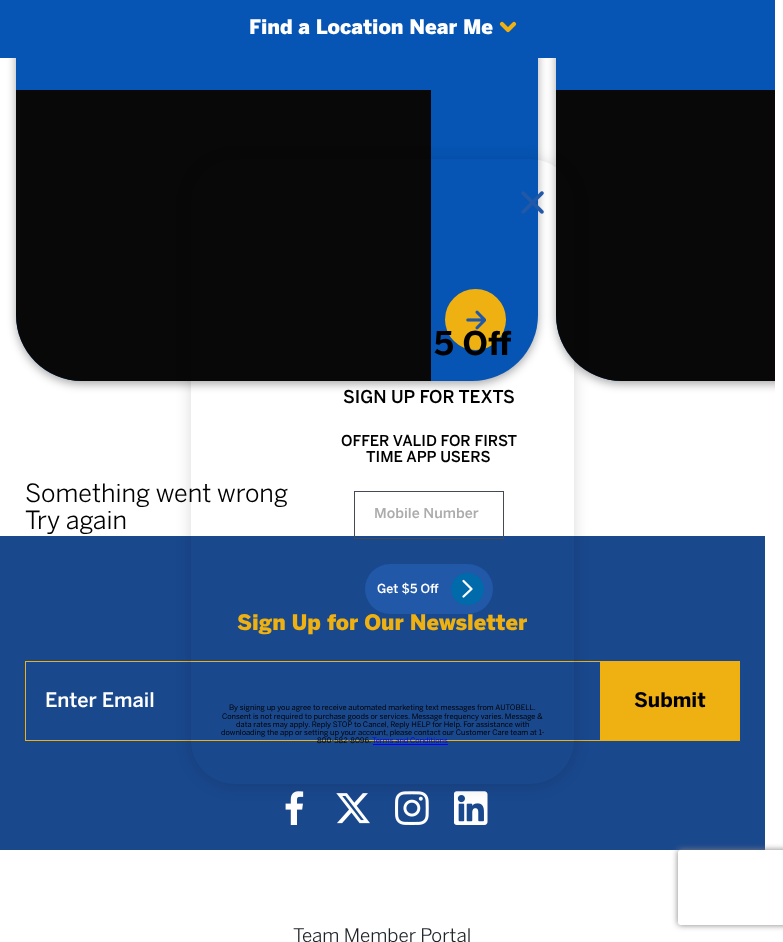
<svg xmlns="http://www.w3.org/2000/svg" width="783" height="942">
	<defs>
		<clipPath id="clip1"><rect x="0" y="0" width="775" height="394" /></clipPath>
		<clipPath id="clip2"><path d="M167 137H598V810H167ZM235 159H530C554.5 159 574 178.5 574 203V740C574 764.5 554.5 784 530 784H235C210.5 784 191 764.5 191 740V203C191 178.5 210.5 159 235 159Z" clip-rule="evenodd" /></clipPath>
		<clipPath id="clip3"><rect x="374" y="508" width="110" height="13" /></clipPath>
		<clipPath id="clip4"><path d="M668 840H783V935H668ZM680.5 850H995.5C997 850 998 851 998 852.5V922.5C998 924 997 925 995.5 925H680.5C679 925 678 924 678 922.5V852.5C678 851 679 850 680.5 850Z" clip-rule="evenodd" /></clipPath>
	</defs>
	<rect width="100%" height="100%" fill="#FFFFFF" />
	<rect x="16" y="-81" width="522" height="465" rx="66" fill="#000000" fill-opacity="0.34" filter="blur(5px)" />
	<rect x="16" y="-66" width="522" height="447" rx="66" fill="#0654B3" />
	<g clip-path="url(#clip1)">
		<rect x="556" y="-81" width="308" height="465" rx="66" fill="#000000" fill-opacity="0.34" filter="blur(5px)" />
	</g>
	<rect x="0" y="0" width="556" height="58" fill="#0654B3" />
	<text x="249" y="34" font-family="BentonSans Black" font-size="20" font-weight="900" fill="#FFFFFF">Find a Location Near Me</text>
	<path d="M514 24L508 30L502 24" fill="none" stroke="#EEB111" stroke-width="4.1" stroke-linecap="round" stroke-linejoin="round" />
	<path d="M16 90H431V381H82C45.5 381 16 351.5 16 315Z" fill="#080808" />
	<circle cx="475.5" cy="319.5" r="30.5" fill="#EEB111" />
	<image x="466" y="310" width="20" height="20" href="assets/img1.png" />
	<path d="M622-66H775V381H622C585.5 381 556 351.5 556 315V0C556-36.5 585.5-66 622-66Z" fill="#0654B3" />
	<path d="M556 90H775V381H622C585.5 381 556 351.5 556 315Z" fill="#080808" />
	<g font-family="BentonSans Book" font-size="25" fill="#000000">
		<text x="25" y="502">Something went wrong</text>
		<text x="25" y="529">Try again</text>
	</g>
	<rect x="0" y="536" width="765" height="314" fill="#1A488D" />
	<rect x="25" y="661" width="575" height="1" fill="#EEB111" />
	<rect x="25" y="740" width="575" height="1" fill="#EEB111" />
	<image x="285" y="791" width="19" height="34" href="assets/img3.png" />
	<image x="336" y="793" width="34" height="31" href="assets/img4.png" />
	<image x="395" y="791" width="34" height="34" href="assets/img5.png" />
	<image x="454" y="791" width="34" height="34" href="assets/img6.png" />
	<g clip-path="url(#clip2)">
		<rect x="191" y="161" width="383" height="625" rx="44" fill="#000000" fill-opacity="0.15" filter="blur(7.5px)" />
	</g>
	<image x="521" y="191" width="23" height="23" href="assets/img2.png" />
	<text x="434" y="355" font-family="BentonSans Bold" font-size="32.5" font-weight="700" fill="#000000">5 Off</text>
	<text x="343" y="403" font-family="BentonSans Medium" font-size="17.5" font-weight="500" fill="#000000">SIGN UP FOR TEXTS</text>
	<g font-family="BentonSans Medium" font-size="15" font-weight="500" fill="#000000">
		<text x="341" y="446">OFFER VALID FOR FIRST</text>
		<text x="366" y="462">TIME APP USERS</text>
	</g>
	<rect x="354.5" y="491.5" width="149" height="47" fill="none" stroke="#444B53" />
	<g clip-path="url(#clip3)">
		<text x="374" y="518" font-family="BentonSans Medium" font-size="14.25" font-weight="500" fill="#ACACAC">Mobile Number</text>
	</g>
	<rect x="365" y="564" width="128" height="50" rx="25" fill="#2158A8" />
	<text x="377" y="593" font-family="BentonSans Medium" font-size="12.5" font-weight="500" fill="#FFFFFF">Get $5 Off</text>
	<rect x="451" y="573" width="33" height="32" rx="16" fill="#006AAA" />
	<path d="M463.5 596.5L471.5 589L463.5 581" fill="none" stroke="#FFFFFF" stroke-width="2.3" stroke-linecap="round" stroke-linejoin="round" />
	<g font-family="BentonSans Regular" font-size="7.5" fill="#000000">
		<text x="229" y="710">By signing up you agree to receive automated marketing text messages from AUTOBELL.</text>
		<text x="222" y="719">Consent is not required to purchase goods or services. Message frequency varies. Message &amp;</text>
		<text x="236" y="727">data rates may apply. Reply STOP to Cancel, Reply HELP for Help. For assistance with</text>
		<text x="221" y="735">downloading the app or setting up your account, please contact our Customer Care team at 1-</text>
		<text x="317" y="743">800-582-8096.</text>
	</g>
	<text x="372" y="743" font-family="BentonSans Regular" font-size="7.5" fill="#0000FF">Terms and Conditions</text>
	<rect x="373" y="744" width="75" height="1" fill="#0000FF" />
	<text x="237" y="630" font-family="BentonSans Black" font-size="21.25" font-weight="900" fill="#EEB111">Sign Up for Our Newsletter</text>
	<rect x="25" y="661" width="1" height="80" fill="#EEB111" />
	<text x="45" y="707" font-family="BentonSans Medium" font-size="20" font-weight="500" fill="#FFFFFF">Enter Email</text>
	<rect x="600" y="661" width="140" height="80" fill="#EEB111" />
	<text x="634" y="707" font-family="BentonSans Bold" font-size="20" font-weight="700" fill="#000000">Submit</text>
	<text x="293" y="942" font-family="BentonSans Book" font-size="18.75" fill="#1E2226">Team Member Portal</text>
	<g clip-path="url(#clip4)">
		<rect x="678" y="850" width="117" height="75" rx="2.5" fill="#808080" filter="blur(3px)" />
	</g>
</svg>
